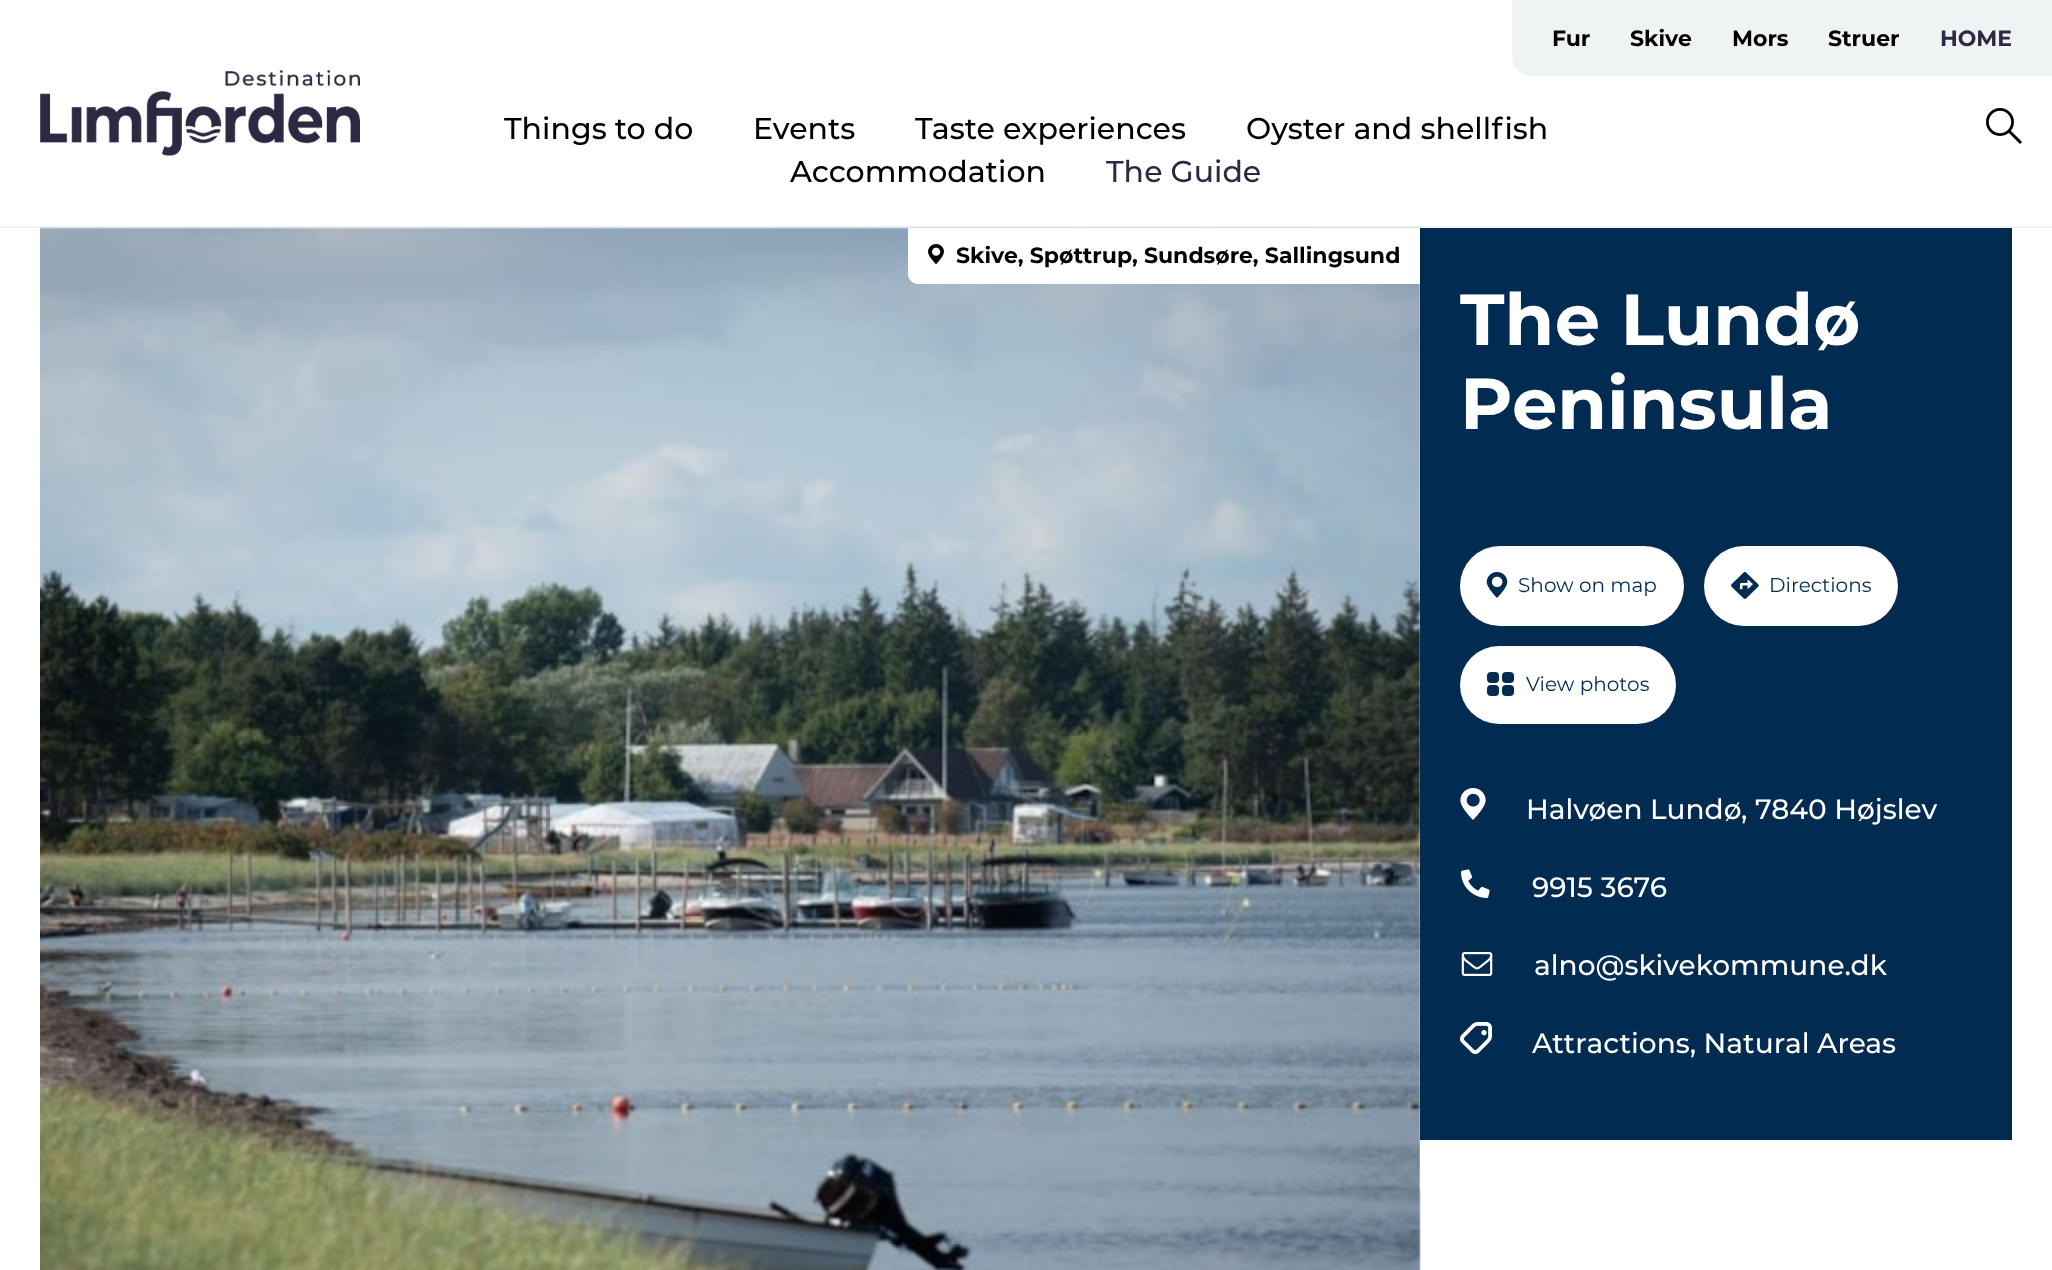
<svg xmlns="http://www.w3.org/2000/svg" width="2052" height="1270">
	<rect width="100%" height="100%" fill="#FFFFFF" />
	<rect x="0" y="226" width="2052" height="2" fill="#F0F1F3" />
	<image x="40" y="70" width="320" height="86" href="assets/img1.png" />
	<path d="M1512 0H2052V76H1532C1521 76 1512 67 1512 56Z" fill="#EFF3F4" />
	<g font-family="Montserrat" font-size="22" font-weight="700" fill="#000000">
		<text x="1552" y="46">Fur</text>
		<text x="1630" y="46">Skive</text>
		<text x="1732" y="46">Mors</text>
		<text x="1828" y="46">Struer</text>
	</g>
	<text x="1940" y="46" font-family="Montserrat" font-size="22" font-weight="700" fill="#2C2943">HOME</text>
	<g font-family="Montserrat" font-size="30" font-weight="500" fill="#000000">
		<text x="504" y="139">Things to do</text>
		<text x="753" y="139">Events</text>
		<text x="915" y="139">Taste experiences</text>
		<text x="1246" y="139">Oyster and shellfish</text>
		<text x="790" y="182">Accommodation</text>
	</g>
	<text x="1106" y="182" font-family="Montserrat" font-size="30" font-weight="500" fill="#2C2943">The Guide</text>
	<image x="1986" y="108" width="36" height="36" href="assets/img2.png" />
	<image x="40" y="227" width="1381" height="1043" href="assets/img3.png" />
	<path d="M908 228H1420V284H918C912.5 284 908 279.5 908 274Z" fill="#FFFFFF" />
	<image x="928" y="244" width="16" height="20" href="assets/img4.png" />
	<text x="956" y="263" font-family="Montserrat" font-size="22" font-weight="700" fill="#000000">Skive, Spøttrup, Sundsøre, Sallingsund</text>
	<rect x="1420" y="228" width="592" height="912" fill="#022B52" />
	<g font-family="Montserrat" font-size="72" font-weight="700" fill="#FFFFFF">
		<text x="1460" y="345">The Lundø</text>
		<text x="1460" y="429">Peninsula</text>
	</g>
	<rect x="1460" y="546" width="224" height="80" rx="40" fill="#FFFFFF" />
	<image x="1486" y="572" width="22" height="26" href="assets/img5.png" />
	<text x="1518" y="592" font-family="Montserrat" font-size="20" fill="#022B52">Show on map</text>
	<rect x="1704" y="546" width="194" height="80" rx="40" fill="#FFFFFF" />
	<image x="1731" y="572" width="28" height="27" href="assets/img6.png" />
	<text x="1769" y="592" font-family="Montserrat" font-size="20" fill="#022B52">Directions</text>
	<rect x="1460" y="646" width="216" height="78" rx="39" fill="#FFFFFF" />
	<rect x="1502" y="672" width="12" height="11" rx="4" fill="#022B52" />
	<rect x="1502" y="685" width="12" height="11" rx="4" fill="#022B52" />
	<rect x="1487" y="672" width="12" height="11" rx="4" fill="#022B52" />
	<rect x="1487" y="685" width="12" height="11" rx="4" fill="#022B52" />
	<text x="1526" y="691" font-family="Montserrat" font-size="20" fill="#022B52">View photos</text>
	<image x="1460" y="788" width="26" height="32" href="assets/img7.png" />
	<text x="1526" y="819" font-family="Montserrat" font-size="28" font-weight="500" fill="#FFFFFF">Halvøen Lundø, 7840 Højslev</text>
	<image x="1461" y="869" width="29" height="29" href="assets/img8.png" />
	<text x="1532" y="897" font-family="Montserrat" font-size="28" font-weight="500" fill="#FFFFFF">9915 3676</text>
	<image x="1461" y="952" width="32" height="24" href="assets/img9.png" />
	<text x="1534" y="975" font-family="Montserrat" font-size="28" font-weight="500" fill="#FFFFFF">alno@skivekommune.dk</text>
	<image x="1460" y="1022" width="32" height="32" href="assets/img10.png" />
	<text x="1532" y="1053" font-family="Montserrat" font-size="28" font-weight="500" fill="#FFFFFF">Attractions, Natural Areas</text>
	<rect x="1420" y="1140" width="1" height="50" fill="#FFFFFF" />
</svg>
